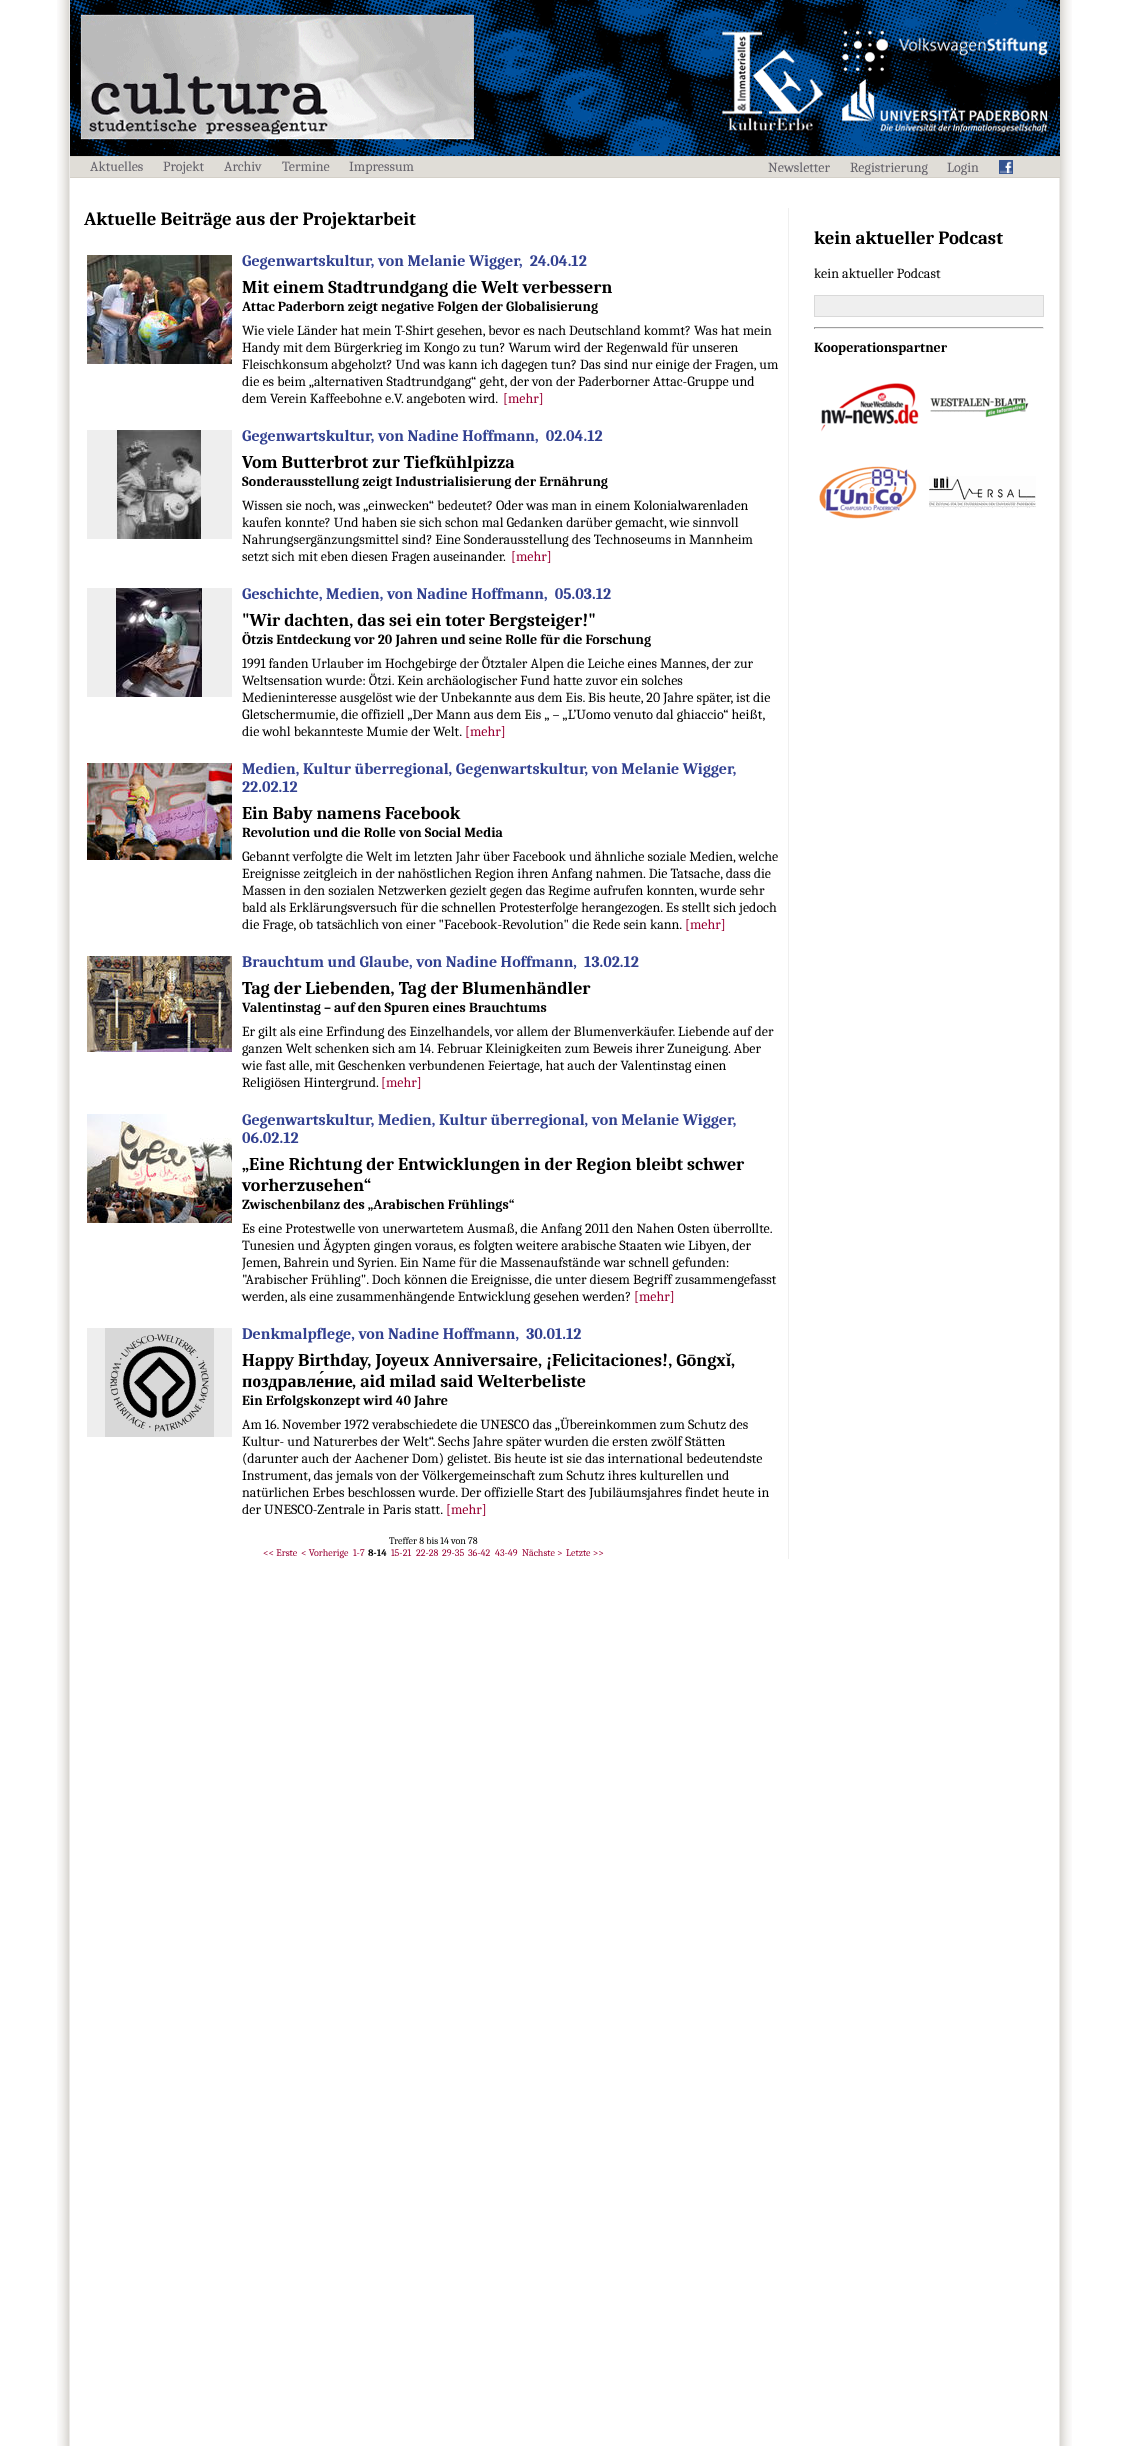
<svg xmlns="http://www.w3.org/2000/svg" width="1127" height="2446">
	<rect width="100%" height="100%" fill="#FFFFFF" />
	<image x="57" y="0" width="1015" height="2446" href="assets/img1.png" />
	<image x="70" y="0" width="990" height="156" href="assets/img2.png" />
	<rect x="70" y="157" width="990" height="20" fill="#E0DDD7" />
	<rect x="70" y="156" width="990" height="1" fill="#D4D0C8" />
	<rect x="70" y="177" width="990" height="1" fill="#D4D0C8" />
	<g font-family="Caladea" font-size="14" fill="#66646C">
		<text x="90" y="171">Aktuelles</text>
		<text x="163" y="171">Projekt</text>
		<text x="224" y="171">Archiv</text>
		<text x="282" y="171">Termine</text>
		<text x="349" y="171">Impressum</text>
		<text x="768" y="172">Newsletter</text>
		<text x="850" y="172">Registrierung</text>
		<text x="947" y="172">Login</text>
	</g>
	<image x="999" y="160" width="14" height="14" href="assets/img3.png" />
	<rect x="788" y="208" width="1" height="1351" fill="#EFEFEF" />
	<text x="84" y="225" font-family="Caladea" font-size="18.75" font-weight="700" fill="#000000">Aktuelle Beiträge aus der Projektarbeit</text>
	<image x="87" y="255" width="145" height="109" href="assets/img4.png" />
	<text x="242" y="266" font-family="Caladea" font-size="16" font-weight="700" fill="#324191" xml:space="preserve">Gegenwartskultur, von Melanie Wigger,  24.04.12</text>
	<text x="242" y="293" font-family="Caladea" font-size="18" font-weight="700" fill="#000000">Mit einem Stadtrundgang die Welt verbessern</text>
	<text x="242" y="311" font-family="Caladea" font-size="14" font-weight="700" fill="#000000">Attac Paderborn zeigt negative Folgen der Globalisierung</text>
	<g font-family="Caladea" font-size="14" fill="#000000">
		<text x="242" y="335">Wie viele Länder hat mein T-Shirt gesehen, bevor es nach Deutschland kommt? Was hat mein</text>
		<text x="242" y="352">Handy mit dem Bürgerkrieg im Kongo zu tun? Warum wird der Regenwald für unseren</text>
		<text x="242" y="369">Fleischkonsum abgeholzt? Und was kann ich dagegen tun? Das sind nur einige der Fragen, um</text>
		<text x="242" y="386">die es beim „alternativen Stadtrundgang“ geht, der von der Paderborner Attac-Gruppe und</text>
		<text x="242" y="403">dem Verein Kaffeebohne e.V. angeboten wird.</text>
	</g>
	<text x="503" y="403" font-family="Caladea" font-size="14" fill="#990033">[mehr]</text>
	<rect x="87" y="430" width="145" height="109" fill="#EEEEEE" />
	<image x="117" y="430" width="84" height="109" href="assets/img5.png" />
	<text x="242" y="441" font-family="Caladea" font-size="16" font-weight="700" fill="#324191" xml:space="preserve">Gegenwartskultur, von Nadine Hoffmann,  02.04.12</text>
	<text x="242" y="468" font-family="Caladea" font-size="18" font-weight="700" fill="#000000">Vom Butterbrot zur Tiefkühlpizza</text>
	<text x="242" y="486" font-family="Caladea" font-size="14" font-weight="700" fill="#000000">Sonderausstellung zeigt Industrialisierung der Ernährung</text>
	<g font-family="Caladea" font-size="14" fill="#000000">
		<text x="242" y="510">Wissen sie noch, was „einwecken“ bedeutet? Oder was man in einem Kolonialwarenladen</text>
		<text x="242" y="527">kaufen konnte? Und haben sie sich schon mal Gedanken darüber gemacht, wie sinnvoll</text>
		<text x="242" y="544">Nahrungsergänzungsmittel sind? Eine Sonderausstellung des Technoseums in Mannheim</text>
		<text x="242" y="561">setzt sich mit eben diesen Fragen auseinander.</text>
	</g>
	<text x="511" y="561" font-family="Caladea" font-size="14" fill="#990033">[mehr]</text>
	<rect x="87" y="588" width="145" height="109" fill="#EEEEEE" />
	<image x="116" y="588" width="86" height="109" href="assets/img6.png" />
	<text x="242" y="599" font-family="Caladea" font-size="16" font-weight="700" fill="#324191" xml:space="preserve">Geschichte, Medien, von Nadine Hoffmann,  05.03.12</text>
	<text x="242" y="626" font-family="Caladea" font-size="18" font-weight="700" fill="#000000">"Wir dachten, das sei ein toter Bergsteiger!"</text>
	<text x="242" y="644" font-family="Caladea" font-size="14" font-weight="700" fill="#000000">Ötzis Entdeckung vor 20 Jahren und seine Rolle für die Forschung</text>
	<g font-family="Caladea" font-size="14" fill="#000000">
		<text x="242" y="668">1991 fanden Urlauber im Hochgebirge der Ötztaler Alpen die Leiche eines Mannes, der zur</text>
		<text x="242" y="685">Weltsensation wurde: Ötzi. Kein archäologischer Fund hatte zuvor ein solches</text>
		<text x="242" y="702">Medieninteresse ausgelöst wie der Unbekannte aus dem Eis. Bis heute, 20 Jahre später, ist die</text>
		<text x="242" y="719">Gletschermumie, die offiziell „Der Mann aus dem Eis „ – „L’Uomo venuto dal ghiaccio“ heißt,</text>
		<text x="242" y="736">die wohl bekannteste Mumie der Welt.</text>
	</g>
	<text x="465" y="736" font-family="Caladea" font-size="14" fill="#990033">[mehr]</text>
	<image x="87" y="763" width="145" height="97" href="assets/img7.png" />
	<g font-family="Caladea" font-size="16" font-weight="700" fill="#324191">
		<text x="242" y="774">Medien, Kultur überregional, Gegenwartskultur, von Melanie Wigger,</text>
		<text x="242" y="792">22.02.12</text>
	</g>
	<text x="242" y="819" font-family="Caladea" font-size="18" font-weight="700" fill="#000000">Ein Baby namens Facebook</text>
	<text x="242" y="837" font-family="Caladea" font-size="14" font-weight="700" fill="#000000">Revolution und die Rolle von Social Media</text>
	<g font-family="Caladea" font-size="14" fill="#000000">
		<text x="242" y="861">Gebannt verfolgte die Welt im letzten Jahr über Facebook und ähnliche soziale Medien, welche</text>
		<text x="242" y="878">Ereignisse zeitgleich in der nahöstlichen Region ihren Anfang nahmen. Die Tatsache, dass die</text>
		<text x="242" y="895">Massen in den sozialen Netzwerken gezielt gegen das Regime aufrufen konnten, wurde sehr</text>
		<text x="242" y="912">bald als Erklärungsversuch für die schnellen Protesterfolge herangezogen. Es stellt sich jedoch</text>
		<text x="242" y="929">die Frage, ob tatsächlich von einer "Facebook-Revolution" die Rede sein kann.</text>
	</g>
	<text x="685" y="929" font-family="Caladea" font-size="14" fill="#990033">[mehr]</text>
	<image x="87" y="956" width="145" height="96" href="assets/img8.png" />
	<text x="242" y="967" font-family="Caladea" font-size="16" font-weight="700" fill="#324191" xml:space="preserve">Brauchtum und Glaube, von Nadine Hoffmann,  13.02.12</text>
	<text x="242" y="994" font-family="Caladea" font-size="18" font-weight="700" fill="#000000">Tag der Liebenden, Tag der Blumenhändler</text>
	<text x="242" y="1012" font-family="Caladea" font-size="14" font-weight="700" fill="#000000">Valentinstag – auf den Spuren eines Brauchtums</text>
	<g font-family="Caladea" font-size="14" fill="#000000">
		<text x="242" y="1036">Er gilt als eine Erfindung des Einzelhandels, vor allem der Blumenverkäufer. Liebende auf der</text>
		<text x="242" y="1053">ganzen Welt schenken sich am 14. Februar Kleinigkeiten zum Beweis ihrer Zuneigung. Aber</text>
		<text x="242" y="1070">wie fast alle, mit Geschenken verbundenen Feiertage, hat auch der Valentinstag einen</text>
		<text x="242" y="1087">Religiösen Hintergrund.</text>
	</g>
	<text x="381" y="1087" font-family="Caladea" font-size="14" fill="#990033">[mehr]</text>
	<image x="87" y="1114" width="145" height="109" href="assets/img9.png" />
	<g font-family="Caladea" font-size="16" font-weight="700" fill="#324191">
		<text x="242" y="1125">Gegenwartskultur, Medien, Kultur überregional, von Melanie Wigger,</text>
		<text x="242" y="1143">06.02.12</text>
	</g>
	<g font-family="Caladea" font-size="18" font-weight="700" fill="#000000">
		<text x="242" y="1170">„Eine Richtung der Entwicklungen in der Region bleibt schwer</text>
		<text x="242" y="1191">vorherzusehen“</text>
	</g>
	<text x="242" y="1209" font-family="Caladea" font-size="14" font-weight="700" fill="#000000">Zwischenbilanz des „Arabischen Frühlings“</text>
	<g font-family="Caladea" font-size="14" fill="#000000">
		<text x="242" y="1233">Es eine Protestwelle von unerwartetem Ausmaß, die Anfang 2011 den Nahen Osten überrollte.</text>
		<text x="242" y="1250">Tunesien und Ägypten gingen voraus, es folgten weitere arabische Staaten wie Libyen, der</text>
		<text x="242" y="1267">Jemen, Bahrein und Syrien. Ein Name für die Massenaufstände war schnell gefunden:</text>
		<text x="242" y="1284">"Arabischer Frühling". Doch können die Ereignisse, die unter diesem Begriff zusammengefasst</text>
		<text x="242" y="1301">werden, als eine zusammenhängende Entwicklung gesehen werden?</text>
	</g>
	<text x="634" y="1301" font-family="Caladea" font-size="14" fill="#990033">[mehr]</text>
	<rect x="87" y="1328" width="145" height="109" fill="#EEEEEE" />
	<image x="105" y="1328" width="109" height="109" href="assets/img10.png" />
	<text x="242" y="1339" font-family="Caladea" font-size="16" font-weight="700" fill="#324191" xml:space="preserve">Denkmalpflege, von Nadine Hoffmann,  30.01.12</text>
	<text x="242" y="1366" font-family="Caladea" font-size="18" font-weight="700" fill="#000000">Happy Birthday, Joyeux Anniversaire, ¡Felicitaciones!, Gōngx</text>
	<text x="726" y="1366" font-family="Liberation Serif" font-size="18" font-weight="700" fill="#000000">ǐ</text>
	<text x="731" y="1366" font-family="Caladea" font-size="18" font-weight="700" fill="#000000">,</text>
	<text x="242" y="1387" font-family="Liberation Serif" font-size="18" font-weight="700" fill="#000000">поздравле́ние</text>
	<text x="352" y="1387" font-family="Caladea" font-size="18" font-weight="700" fill="#000000">, aid milad said Welterbeliste</text>
	<text x="242" y="1405" font-family="Caladea" font-size="14" font-weight="700" fill="#000000">Ein Erfolgskonzept wird 40 Jahre</text>
	<g font-family="Caladea" font-size="14" fill="#000000">
		<text x="242" y="1429">Am 16. November 1972 verabschiedete die UNESCO das „Übereinkommen zum Schutz des</text>
		<text x="242" y="1446">Kultur- und Naturerbes der Welt“. Sechs Jahre später wurden die ersten zwölf Stätten</text>
		<text x="242" y="1463">(darunter auch der Aachener Dom) gelistet. Bis heute ist sie das international bedeutendste</text>
		<text x="242" y="1480">Instrument, das jemals von der Völkergemeinschaft zum Schutz ihres kulturellen und</text>
		<text x="242" y="1497">natürlichen Erbes beschlossen wurde. Der offizielle Start des Jubiläumsjahres findet heute in</text>
		<text x="242" y="1514">der UNESCO-Zentrale in Paris statt.</text>
	</g>
	<text x="446" y="1514" font-family="Caladea" font-size="14" fill="#990033">[mehr]</text>
	<text x="389" y="1544" font-family="Caladea" font-size="10" fill="#000000">Treffer 8 bis 14 von 78</text>
	<g font-family="Caladea" font-size="10" fill="#990033">
		<text x="263" y="1556">&lt;&lt; Erste</text>
		<text x="301" y="1556">&lt; Vorherige</text>
		<text x="353" y="1556">1-7</text>
	</g>
	<text x="368" y="1556" font-family="Caladea" font-size="10" font-weight="700" fill="#000000">8-14</text>
	<g font-family="Caladea" font-size="10" fill="#990033">
		<text x="391" y="1556">15-21</text>
		<text x="416" y="1556">22-28</text>
		<text x="442" y="1556">29-35</text>
		<text x="468" y="1556">36-42</text>
		<text x="495" y="1556">43-49</text>
		<text x="522" y="1556">Nächste &gt;</text>
		<text x="566" y="1556">Letzte &gt;&gt;</text>
	</g>
	<text x="814" y="244" font-family="Caladea" font-size="18.75" font-weight="700" fill="#000000">kein aktueller Podcast</text>
	<text x="814" y="278" font-family="Caladea" font-size="14" fill="#000000">kein aktueller Podcast</text>
	<rect x="814.5" y="295.5" width="229" height="21" fill="#EFEFEF" stroke="#D9D9D9" />
	<rect x="814" y="327" width="230" height="1" fill="#9F9F9F" />
	<rect x="1043" y="327" width="1" height="2" fill="#EEEEEE" />
	<rect x="814" y="328" width="230" height="1" fill="#EEEEEE" />
	<rect x="814" y="327" width="1" height="2" fill="#9F9F9F" />
	<text x="814" y="352" font-family="Caladea" font-size="14" font-weight="700" fill="#000000">Kooperationspartner</text>
	<image x="821" y="383" width="98" height="49" href="assets/img11.png" />
	<image x="930" y="397" width="99" height="21" href="assets/img12.png" />
	<image x="819" y="466" width="98" height="53" href="assets/img13.png" />
	<image x="929" y="476" width="107" height="32" href="assets/img14.png" />
</svg>
